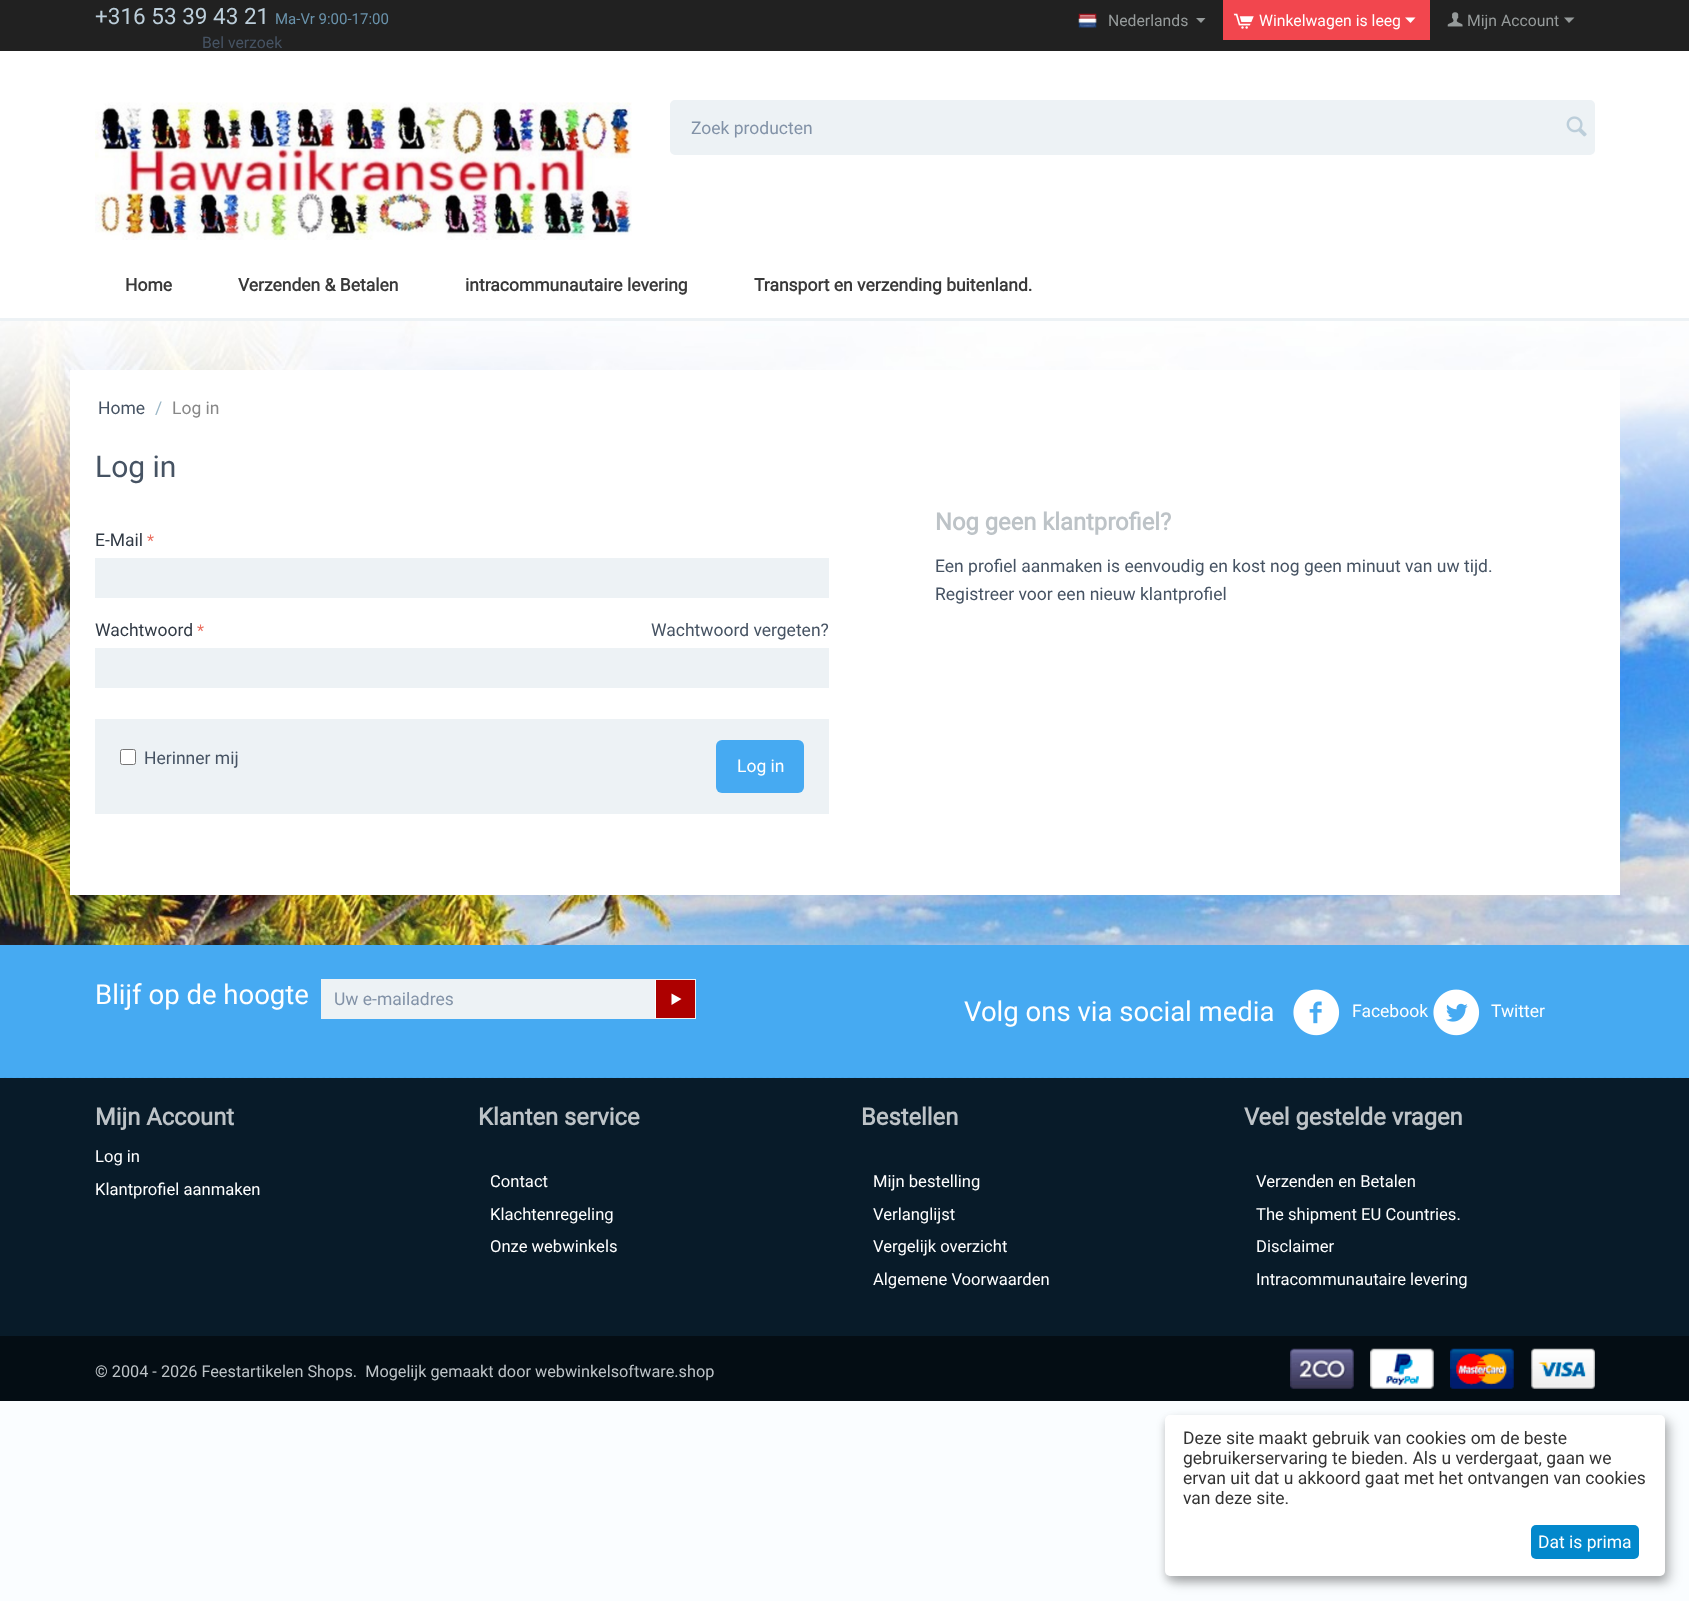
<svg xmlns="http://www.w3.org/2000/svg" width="1689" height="1601">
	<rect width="100%" height="100%" fill="#FAFDFF" />
	<image x="0" y="321" width="1689" height="624" href="assets/img1.png" />
	<rect x="0" y="0" width="1689" height="51" fill="#212121" />
	<text x="95" y="24" font-family="Roboto" font-size="22.5" fill="#BCCEDA">+316 53 39 43 21</text>
	<text x="275" y="24" font-family="Roboto" font-size="15" fill="#6A93AC">Ma-Vr 9:00-17:00</text>
	<text x="202" y="48" font-family="Roboto" font-size="15.75" fill="#465363">Bel verzoek</text>
	<image x="1078" y="13" width="19" height="15" href="assets/img2.png" />
	<text x="1108" y="26" font-family="Roboto" font-size="15.75" fill="#969B9B">Nederlands</text>
	<path d="M1201 23L1196 18H1205.5Z" fill="#969B9B" />
	<rect x="1223" y="0" width="207" height="40" fill="#F2464E" />
	<image x="1233" y="13" width="21" height="16" href="assets/img3.png" />
	<text x="1259" y="26" font-family="Roboto" font-size="15.75" fill="#FFFFFF">Winkelwagen is leeg</text>
	<path d="M1410.5 23L1405 17.5H1415.5Z" fill="#FFFFFF" />
	<image x="1447" y="12" width="16" height="15" href="assets/img4.png" />
	<text x="1467" y="26" font-family="Roboto" font-size="15.75" fill="#969B9B">Mijn Account</text>
	<path d="M1569 23L1564 17.5H1574.5Z" fill="#969B9B" />
	<rect x="0" y="51" width="1689" height="267" fill="#FFFFFF" />
	<image x="95" y="102" width="537" height="138" href="assets/img5.png" />
	<rect x="671.5" y="101.5" width="922" height="52" rx="3.5" fill="#EDF2F5" stroke="#EDF2F5" stroke-width="3" />
	<text x="691" y="134" font-family="Roboto" font-size="17.5" fill="#8292A7">Zoek producten</text>
	<image x="1566" y="116" width="21" height="21" href="assets/img6.png" />
	<g font-family="Roboto" font-size="17.5" font-weight="700" fill="#393939">
		<text x="125" y="291">Home</text>
		<text x="238" y="291">Verzenden &amp; Betalen</text>
		<text x="465" y="291">intracommunautaire levering</text>
		<text x="754" y="291">Transport en verzending buitenland.</text>
	</g>
	<rect x="0" y="318" width="1689" height="3" fill="#EDF2F5" />
	<rect x="70" y="370" width="1550" height="525" fill="#FFFFFF" />
	<text x="98" y="414" font-family="Roboto" font-size="17.5" fill="#465363">Home</text>
	<text x="155" y="414" font-family="Roboto" font-size="17.5" fill="#9BB7C7">/</text>
	<text x="172" y="414" font-family="Roboto" font-size="17.5" fill="#888888">Log in</text>
	<text x="95" y="477" font-family="Roboto" font-size="30" fill="#465363">Log in</text>
	<text x="95" y="546" font-family="Roboto" font-size="17.5" fill="#313A45">E-Mail</text>
	<text x="147" y="546" font-family="Roboto" font-size="16.25" fill="#EA7162">*</text>
	<rect x="95" y="558" width="734" height="40" fill="#EDF2F5" />
	<text x="95" y="636" font-family="Roboto" font-size="17.5" fill="#313A45">Wachtwoord</text>
	<text x="197" y="636" font-family="Roboto" font-size="16.25" fill="#EA7162">*</text>
	<text x="651" y="636" font-family="Roboto" font-size="17.5" fill="#465363">Wachtwoord vergeten?</text>
	<rect x="95" y="648" width="734" height="40" fill="#EDF2F5" />
	<rect x="95" y="719" width="734" height="95" fill="#EDF2F5" />
	<rect x="120.5" y="749.5" width="15" height="15" rx="2" fill="#FFFFFF" stroke="#767676" />
	<text x="144" y="764" font-family="Roboto" font-size="17.5" fill="#465363">Herinner mij</text>
	<rect x="716" y="740" width="88" height="53" rx="6" fill="#46AAF2" />
	<text x="737" y="772" font-family="Roboto" font-size="17.5" fill="#FFFFFF">Log in</text>
	<text x="935" y="530" font-family="Roboto" font-size="23.75" font-weight="700" fill="#BDC3C7">Nog geen klantprofiel?</text>
	<g font-family="Roboto" font-size="17.5" fill="#465363">
		<text x="935" y="572">Een profiel aanmaken is eenvoudig en kost nog geen minuut van uw tijd.</text>
		<text x="935" y="600">Registreer voor een nieuw klantprofiel</text>
	</g>
	<rect x="0" y="1078" width="1689" height="258" fill="#081B29" />
	<rect x="0" y="945" width="1689" height="133" fill="#46AAF2" />
	<text x="95" y="1004" font-family="Roboto" font-size="27.5" fill="#FFFFFF">Blijf op de hoogte</text>
	<rect x="321" y="979" width="375" height="40" fill="#EDF2F5" />
	<text x="334" y="1005" font-family="Roboto" font-size="17.5" fill="#8292A7">Uw e-mailadres</text>
	<rect x="656" y="980" width="39" height="38" fill="#AD0000" />
	<rect x="655" y="980" width="1" height="38" fill="#FFFFFF" />
	<path d="M671.5 993.5L681.5 999L671.5 1005Z" fill="#FFFFFF" />
	<text x="964" y="1021" font-family="Roboto" font-size="27.5" fill="#FFFFFF">Volg ons via social media</text>
	<image x="1293" y="989" width="47" height="47" href="assets/img7.png" />
	<text x="1352" y="1017" font-family="Roboto" font-size="17.5" fill="#FFFFFF">Facebook</text>
	<image x="1433" y="989" width="47" height="47" href="assets/img8.png" />
	<text x="1491" y="1017" font-family="Roboto" font-size="17.5" fill="#FFFFFF">Twitter</text>
	<image x="4" y="1077" width="1683" height="1" href="assets/img9.png" />
	<text x="95" y="1125" font-family="Roboto" font-size="23.75" font-weight="700" fill="#BDC3C7">Mijn Account</text>
	<g font-family="Roboto" font-size="16.6" fill="#FFFFFF">
		<text x="95" y="1162">Log in</text>
		<text x="95" y="1195">Klantprofiel aanmaken</text>
	</g>
	<text x="478" y="1125" font-family="Roboto" font-size="23.75" font-weight="700" fill="#BDC3C7">Klanten service</text>
	<g font-family="Roboto" font-size="16.6" fill="#FFFFFF">
		<text x="490" y="1187">Contact</text>
		<text x="490" y="1220">Klachtenregeling</text>
		<text x="490" y="1252">Onze webwinkels</text>
	</g>
	<text x="861" y="1125" font-family="Roboto" font-size="23.75" font-weight="700" fill="#BDC3C7">Bestellen</text>
	<g font-family="Roboto" font-size="16.6" fill="#FFFFFF">
		<text x="873" y="1187">Mijn bestelling</text>
		<text x="873" y="1220">Verlanglijst</text>
		<text x="873" y="1252">Vergelijk overzicht</text>
		<text x="873" y="1285">Algemene Voorwaarden</text>
	</g>
	<text x="1244" y="1125" font-family="Roboto" font-size="23.75" font-weight="700" fill="#BDC3C7">Veel gestelde vragen</text>
	<g font-family="Roboto" font-size="16.6" fill="#FFFFFF">
		<text x="1256" y="1187">Verzenden en Betalen</text>
		<text x="1256" y="1220">The shipment EU Countries.</text>
		<text x="1256" y="1252">Disclaimer</text>
		<text x="1256" y="1285">Intracommunautaire levering</text>
	</g>
	<rect x="0" y="1336" width="1689" height="65" fill="#040D14" />
	<text x="95" y="1377" font-family="Roboto" font-size="16.25" fill="#BDC3C7" xml:space="preserve">© 2004 - 2026 Feestartikelen Shops.  Mogelijk gemaakt door webwinkelsoftware.shop</text>
	<image x="1290" y="1348" width="64" height="41" href="assets/img10.png" />
	<image x="1370" y="1348" width="64" height="41" href="assets/img11.png" />
	<image x="1450" y="1348" width="64" height="41" href="assets/img12.png" />
	<image x="1531" y="1348" width="64" height="41" href="assets/img13.png" />
	<rect x="1171" y="1421" width="500" height="162" rx="5" fill="#000000" fill-opacity="0.19" filter="blur(6px)" />
	<rect x="1165" y="1420" width="500" height="161" rx="5" fill="#000000" fill-opacity="0.2" filter="blur(4px)" />
	<rect x="1165" y="1415" width="500" height="161" rx="5" fill="#FFFFFF" />
	<g font-family="Roboto" font-size="17.5" fill="#333333">
		<text x="1183" y="1444">Deze site maakt gebruik van cookies om de beste</text>
		<text x="1183" y="1464">gebruikerservaring te bieden. Als u verdergaat, gaan we</text>
		<text x="1183" y="1484">ervan uit dat u akkoord gaat met het ontvangen van cookies</text>
		<text x="1183" y="1504">van deze site.</text>
	</g>
	<rect x="1531" y="1525" width="108" height="34" rx="5" fill="#0388CC" />
	<text x="1538" y="1548" font-family="Roboto" font-size="17.5" fill="#FFFFFF">Dat is prima</text>
</svg>
